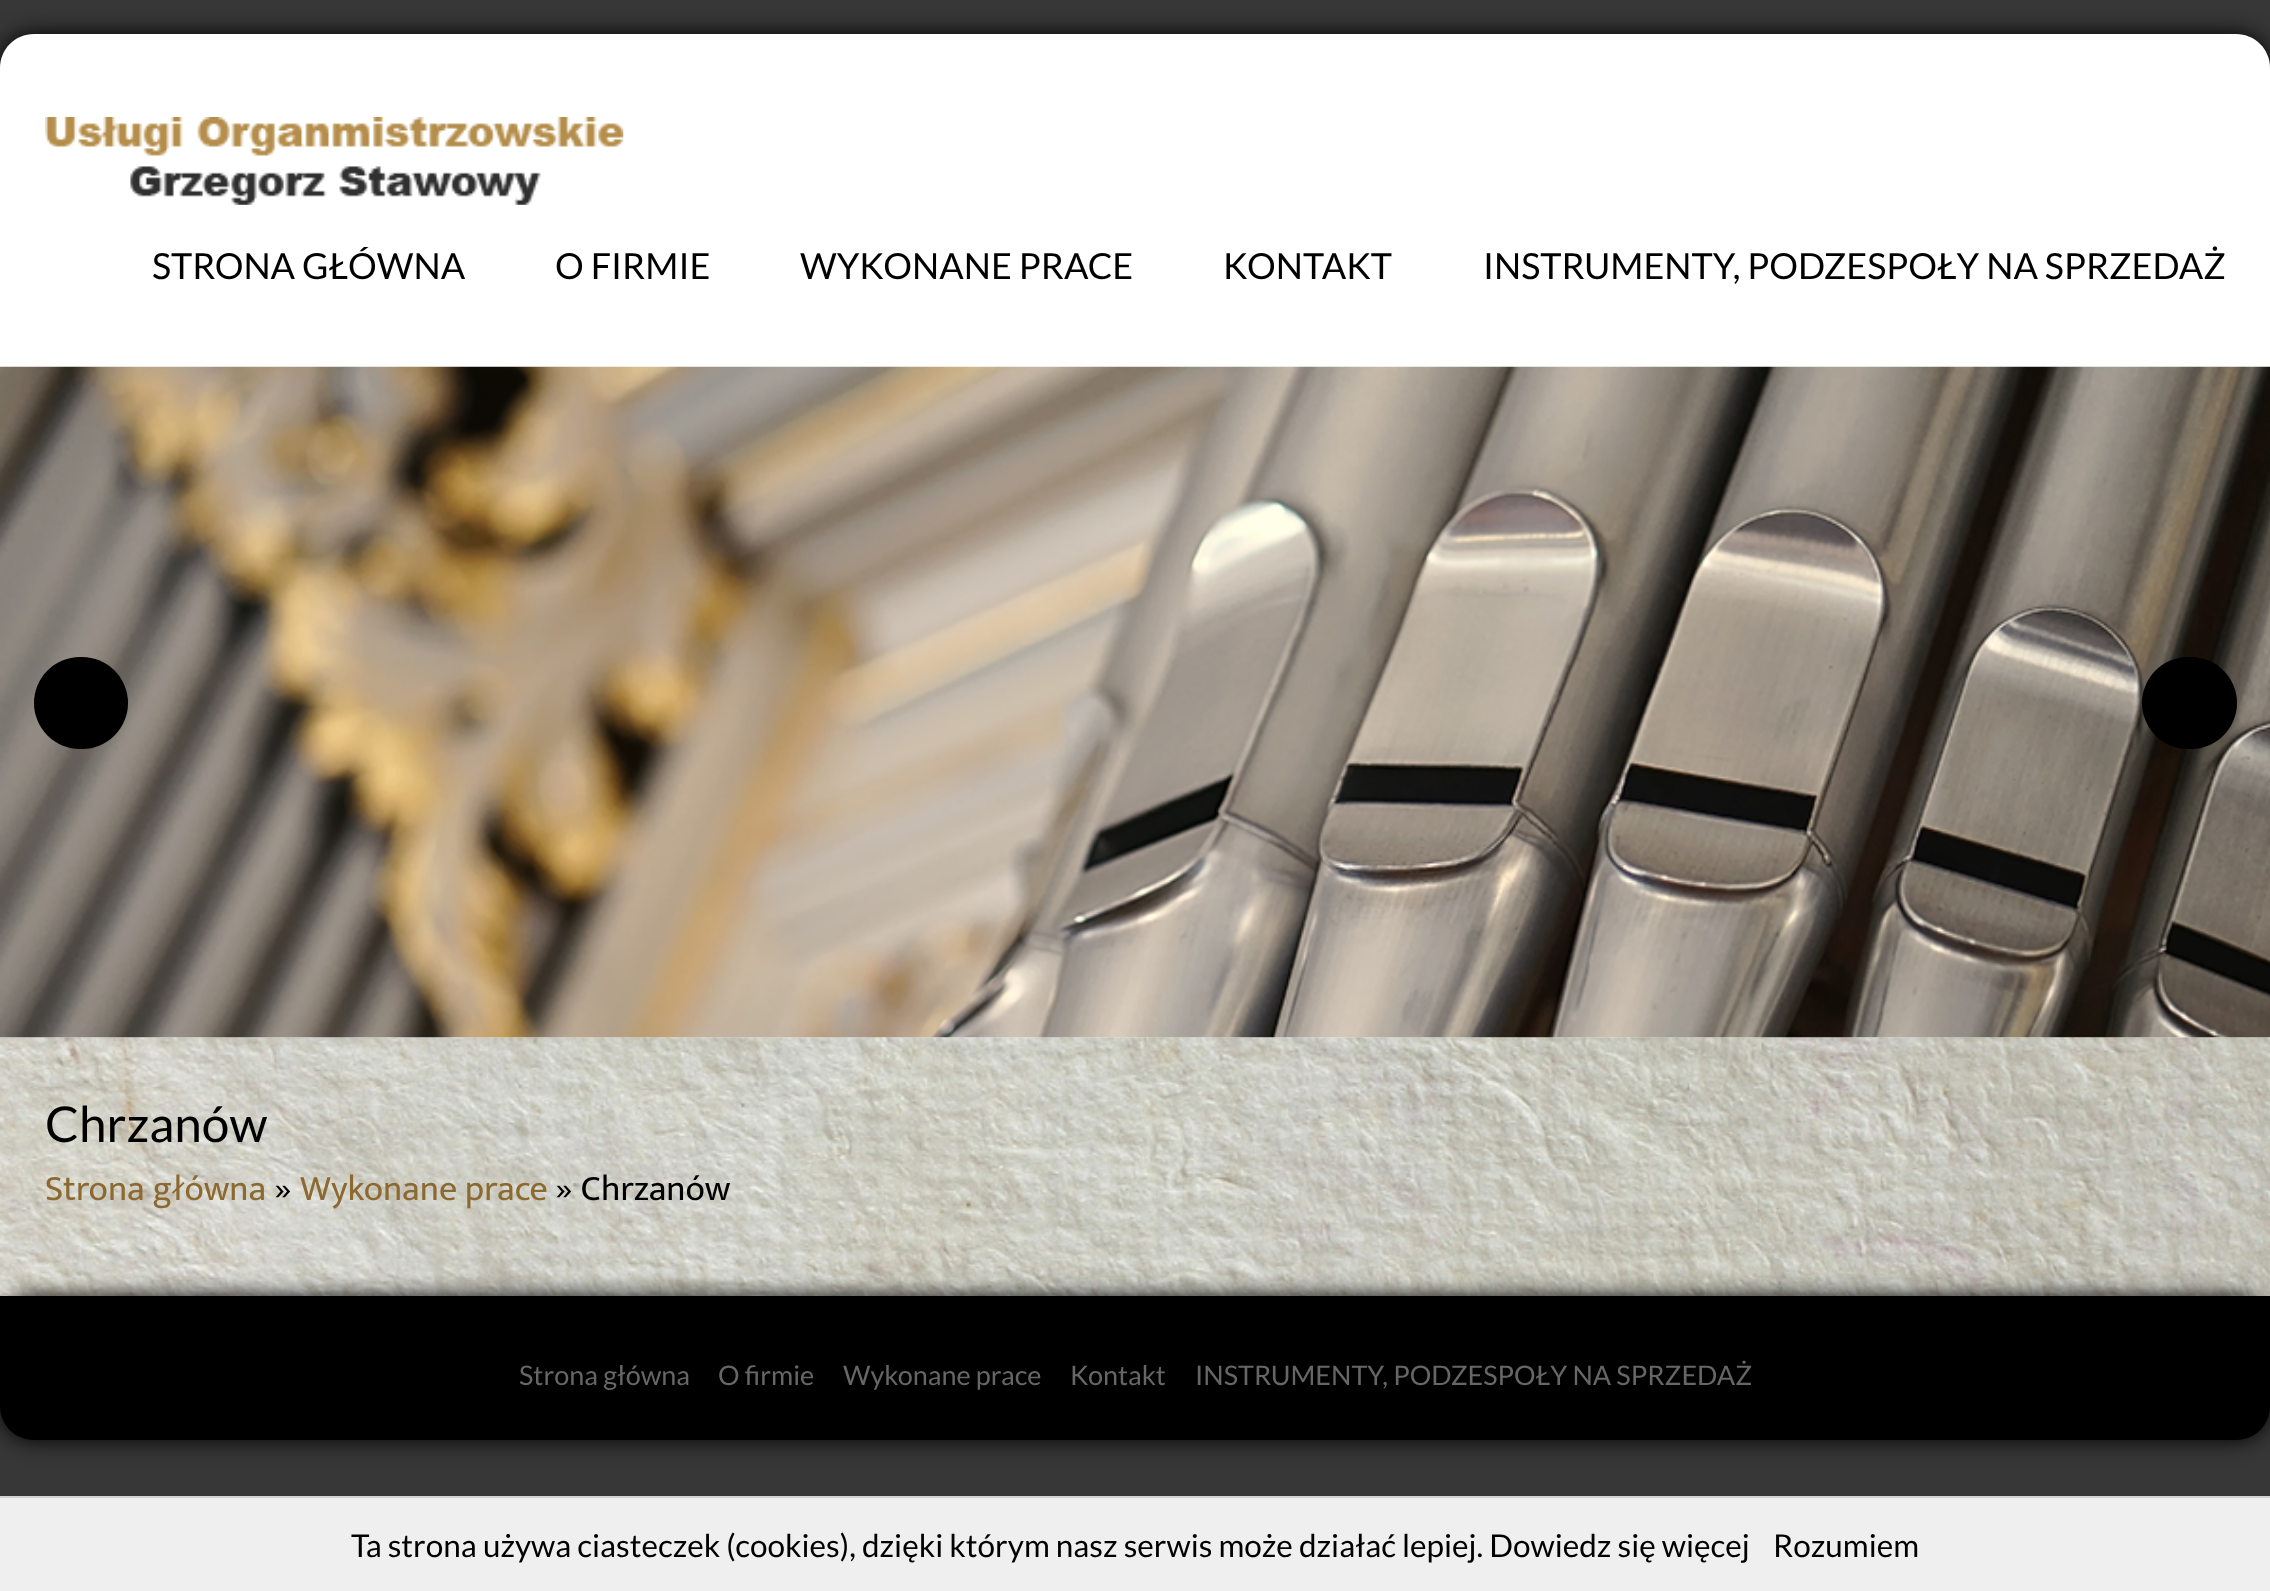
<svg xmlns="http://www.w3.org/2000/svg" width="2270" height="1591">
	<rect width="100%" height="100%" fill="#373737" />
	<rect x="0" y="34" width="2270" height="1262" rx="34" fill="#000000" filter="blur(11px)" />
	<path d="M34 34H2236C2255 34 2270 49 2270 68V1296H0V68C0 49 15 34 34 34Z" fill="#FFFFFF" />
	<image x="45" y="117" width="579" height="88" href="assets/img1.png" />
	<g font-family="Lato" font-size="36" fill="#000000">
		<text x="152" y="279">STRONA GŁÓWNA</text>
		<text x="555" y="279">O FIRMIE</text>
		<text x="800" y="279">WYKONANE PRACE</text>
		<text x="1223" y="279">KONTAKT</text>
		<text x="1483" y="279">INSTRUMENTY, PODZESPOŁY NA SPRZEDAŻ</text>
	</g>
	<image x="0" y="1037" width="2270" height="259" href="assets/img3.png" />
	<image x="0" y="366" width="2270" height="672" href="assets/img2.png" />
	<rect x="34" y="657" width="94" height="92" rx="46" fill="#000000" />
	<rect x="2142" y="657" width="95" height="92" rx="46" fill="#000000" />
	<text x="45" y="1142" font-family="Lato" font-size="49.5" fill="#000000">Chrzanów</text>
	<text x="45" y="1200" font-family="Mukta" font-size="36" fill="#8C6930">Strona główna</text>
	<text x="274" y="1200" font-family="Mukta" font-size="36" fill="#000000">»</text>
	<text x="300" y="1200" font-family="Mukta" font-size="36" fill="#8C6930">Wykonane prace</text>
	<text x="555" y="1200" font-family="Mukta" font-size="36" fill="#000000">» Chrzanów</text>
	<rect x="0" y="1296" width="2270" height="144" rx="34" fill="#000000" filter="blur(11px)" />
	<path d="M0 1296H2270V1406C2270 1425 2255 1440 2236 1440H34C15 1440 0 1425 0 1406Z" fill="#000000" />
	<g font-family="Lato" font-size="27" fill="#666666">
		<text x="519" y="1385">Strona główna</text>
		<text x="718" y="1385">O firmie</text>
		<text x="843" y="1385">Wykonane prace</text>
		<text x="1070" y="1385">Kontakt</text>
		<text x="1195" y="1385">INSTRUMENTY, PODZESPOŁY NA SPRZEDAŻ</text>
	</g>
	<rect x="0" y="1498" width="2270" height="93" fill="#EFEFEF" />
	<rect x="0" y="1496" width="2270" height="2" fill="#D3D0D0" />
	<g font-family="Lato" font-size="31.5" fill="#000000">
		<text x="351" y="1557">Ta strona używa ciasteczek (cookies), dzięki którym nasz serwis może działać lepiej. Dowiedz się więcej</text>
		<text x="1773" y="1557">Rozumiem</text>
	</g>
</svg>
